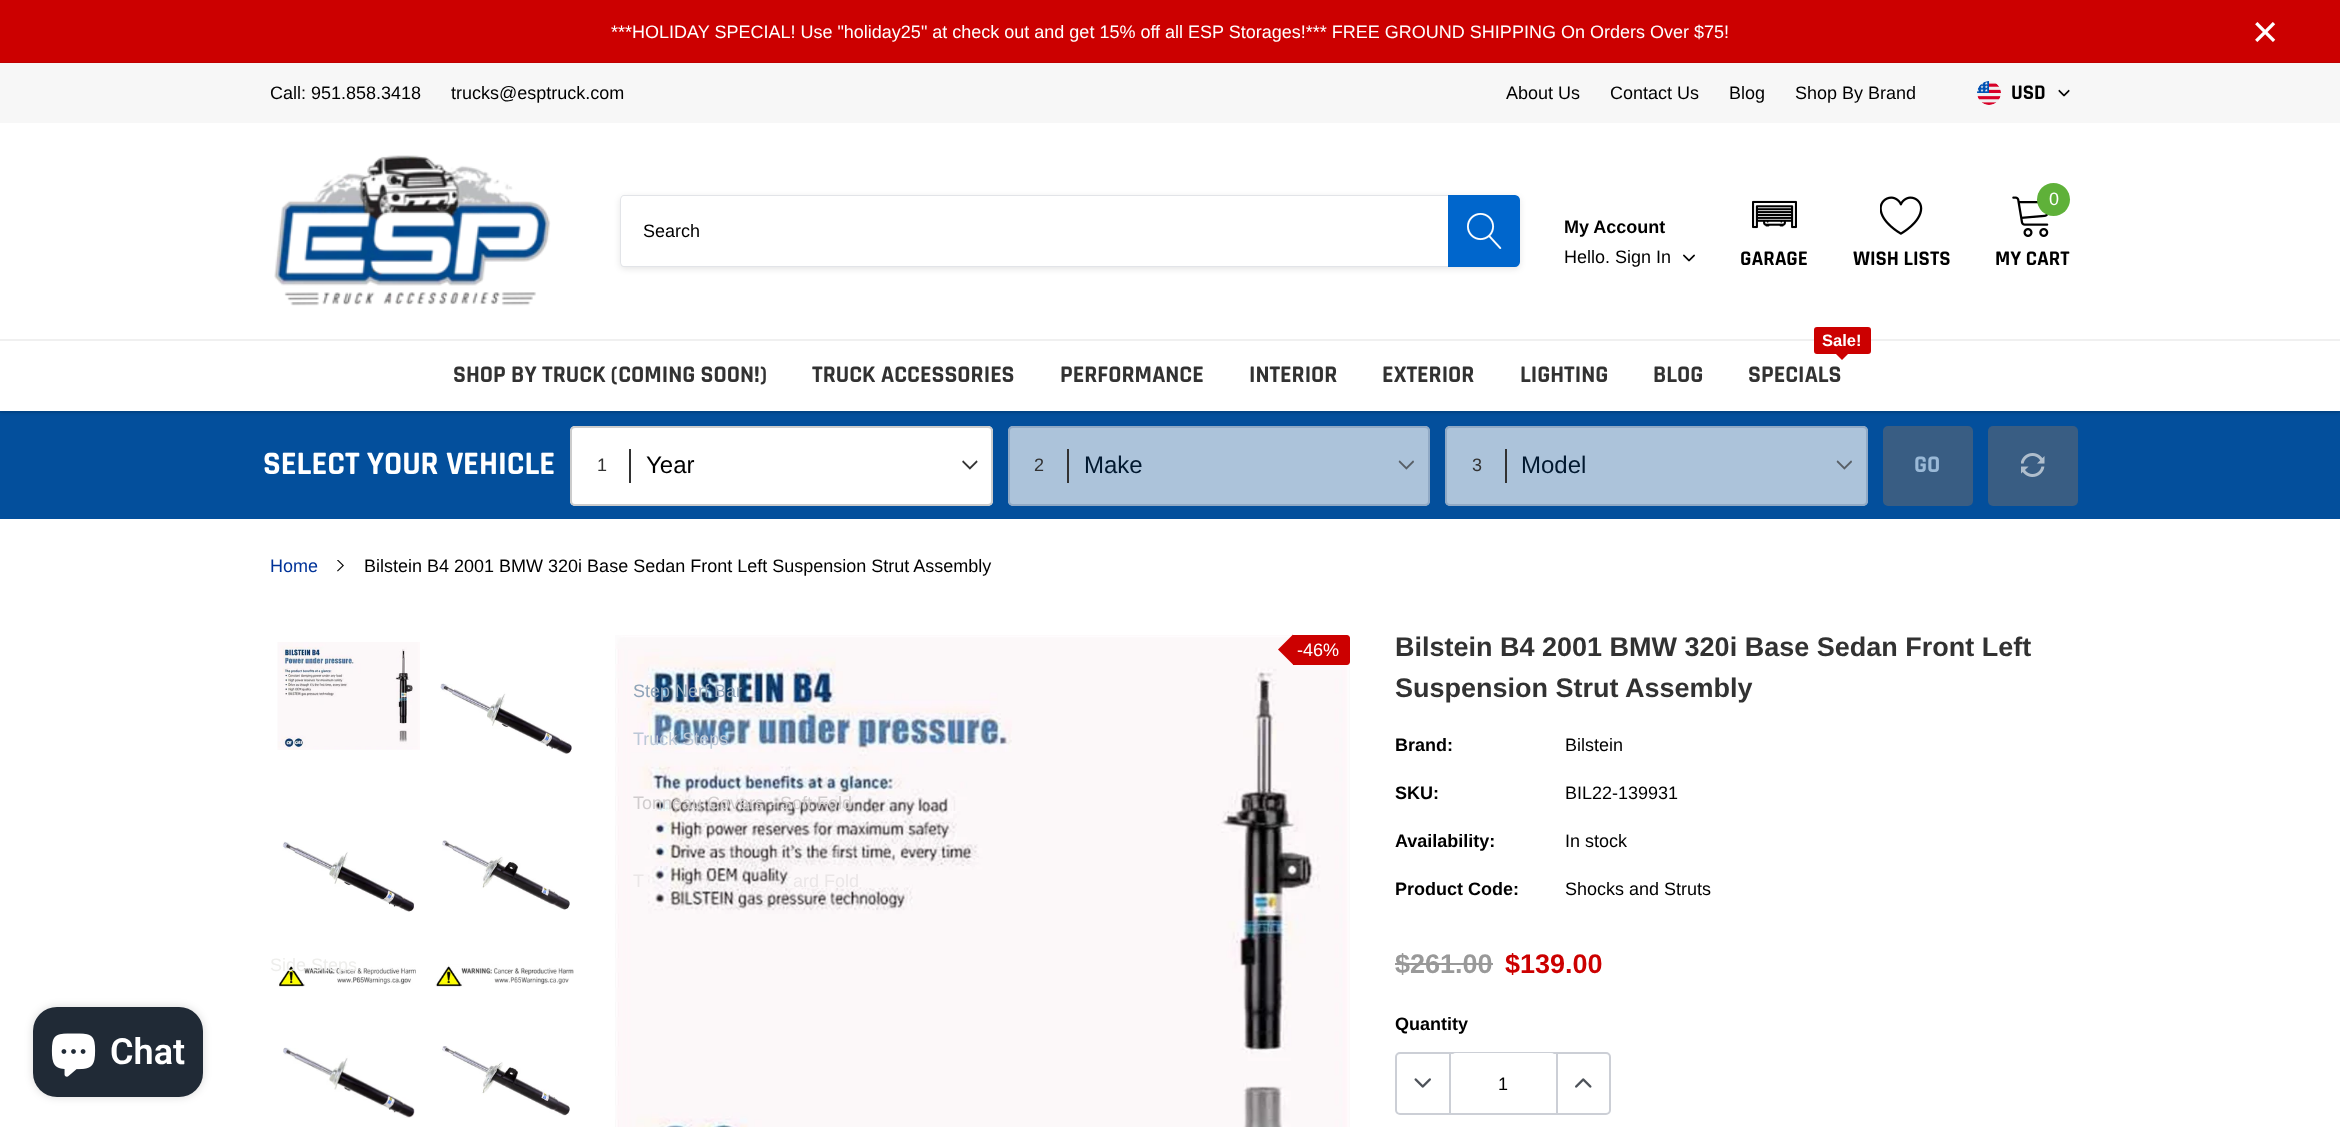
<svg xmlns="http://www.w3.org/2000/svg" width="2340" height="1127">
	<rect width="100%" height="100%" fill="#034F9C" />
	<rect x="0" y="0" width="2340" height="63" fill="#CC0000" />
	<text x="611" y="38" font-family="Arimo" font-size="18" fill="#FFFFFF">***HOLIDAY SPECIAL! Use "holiday25" at check out and get 15% off all ESP Storages!*** FREE GROUND SHIPPING On Orders Over $75!</text>
	<text x="2252" y="47" font-family="Arimo" font-size="45" fill="#FFFFFF">×</text>
	<rect x="0" y="65" width="2340" height="348" fill="#000000" fill-opacity="0.1" filter="blur(1.5px)" />
	<rect x="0" y="63" width="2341" height="349" fill="none" stroke="#000000" stroke-opacity="0.06" stroke-width="2" />
	<rect x="0" y="341" width="2340" height="70" fill="#FFFFFF" />
	<rect x="0" y="63" width="2340" height="60" fill="#F7F7F7" />
	<g font-family="Arimo" font-size="18" fill="#000000">
		<text x="270" y="99">Call: 951.858.3418</text>
		<text x="451" y="99">trucks@esptruck.com</text>
		<text x="1506" y="99">About Us</text>
		<text x="1610" y="99">Contact Us</text>
		<text x="1729" y="99">Blog</text>
		<text x="1795" y="99">Shop By Brand</text>
	</g>
	<image x="1977" y="81" width="24" height="24" href="assets/img1.png" />
	<text x="2011" y="99" font-family="Rajdhani" font-size="21" font-weight="700" fill="#000000">USD</text>
	<image x="2058" y="89" width="12" height="8" href="assets/img2.png" />
	<rect x="0" y="123" width="2340" height="216" fill="#FFFFFF" />
	<image x="274" y="155" width="277" height="151" href="assets/img3.png" />
	<rect x="620" y="197" width="900" height="72" rx="5" fill="#000000" fill-opacity="0.1" filter="blur(3px)" />
	<rect x="620" y="195" width="900" height="72" rx="5" fill="#FFFFFF" />
	<path d="M624 195H1448V267H624C622 267 620 265 620 262V200C620 197 622 195 624 195ZM624 196H1448V266H624C622 266 621 264 621 262V200C621 198 622 196 624 196Z" fill="#E2E4E8" fill-rule="evenodd" />
	<text x="643" y="237" font-family="Arimo" font-size="18" fill="#000000">Search</text>
	<path d="M1449 196H1515C1517 196 1519 198 1519 200V262C1519 264 1517 266 1515 266H1449Z" fill="#0066CC" stroke="#0066CC" stroke-width="2" />
	<image x="1467" y="213" width="35" height="36" href="assets/img4.png" />
	<text x="1564" y="233" font-family="Arimo" font-size="18" font-weight="700" fill="#000000">My Account</text>
	<text x="1564" y="263" font-family="Arimo" font-size="18" fill="#000000">Hello. Sign In</text>
	<image x="1683" y="254" width="12" height="8" href="assets/img5.png" />
	<image x="2012" y="196" width="37" height="41" href="assets/img6.png" />
	<circle cx="2053.5" cy="199.5" r="16.5" fill="#5FB139" />
	<text x="2049" y="205" font-family="Arimo" font-size="18" fill="#FFFFFF">0</text>
	<text x="1995" y="265" font-family="Rajdhani" font-size="21" font-weight="700" fill="#000000">MY CART</text>
	<image x="1752" y="200" width="45" height="29" href="assets/img7.png" />
	<text x="1740" y="265" font-family="Rajdhani" font-size="21" font-weight="700" fill="#000000">GARAGE</text>
	<image x="1880" y="196" width="43" height="39" href="assets/img8.png" />
	<text x="1853" y="265" font-family="Rajdhani" font-size="21" font-weight="700" fill="#000000">WISH LISTS</text>
	<rect x="0" y="339" width="2340" height="2" fill="#F0F0F0" />
	<rect x="1815" y="328" width="55" height="25" rx="2" fill="#CC0000" stroke="#CC0000" stroke-width="2" />
	<text x="1822" y="346" font-family="Arimo" font-size="16.5" font-weight="700" fill="#FFFFFF">Sale!</text>
	<path d="M1834.5 352.5H1849.5L1842 360Z" fill="#CC0000" />
	<g font-family="Rajdhani" font-size="24" font-weight="700" fill="#323232">
		<text x="1748" y="382">SPECIALS</text>
		<text x="812" y="382">TRUCK ACCESSORIES</text>
	</g>
	<rect x="0" y="519" width="2340" height="608" fill="#FFFFFF" />
	<image x="615" y="635" width="735" height="492" href="assets/img22.png" />
	<text x="633" y="809" font-family="Arimo" font-size="18" fill="#D0CCCD">Tonneau Covers - Soft Fold</text>
	<image x="277" y="964" width="139" height="23" href="assets/img18.png" />
	<text x="270" y="971" font-family="Arimo" font-size="18" fill="#EEEEEC">Side Steps</text>
	<g font-family="Rajdhani" font-size="24" font-weight="700" fill="#323232">
		<text x="453" y="382">SHOP BY TRUCK (COMING SOON!)</text>
		<text x="1382" y="382">EXTERIOR</text>
	</g>
	<text x="633" y="697" font-family="Arimo" font-size="18" fill="#90A4B9">Step Nerf Bar</text>
	<text x="633" y="745" font-family="Arimo" font-size="18" fill="#BCC8D7">Truck Steps</text>
	<g font-family="Arimo" font-size="18" fill="#EAE6E7">
		<text x="633" y="887">T</text>
		<text x="793" y="887">ard Fold</text>
	</g>
	<g font-family="Rajdhani" font-size="24" font-weight="700" fill="#323232">
		<text x="1060" y="382">PERFORMANCE</text>
		<text x="1249" y="382">INTERIOR</text>
		<text x="1520" y="382">LIGHTING</text>
		<text x="1653" y="382">BLOG</text>
	</g>
	<text x="263" y="474" font-family="Rajdhani" font-size="33" font-weight="700" fill="#FFFFFF">SELECT YOUR VEHICLE</text>
	<rect x="570" y="426" width="423" height="80" rx="5" fill="#FFFFFF" />
	<image x="962" y="460" width="16" height="10" href="assets/img9.png" />
	<rect x="571" y="427" width="421" height="78" rx="4" fill="none" stroke="#CCCCCC" stroke-width="2" />
	<rect x="629" y="449" width="2" height="34" fill="#323232" />
	<text x="597" y="471" font-family="Arimo" font-size="18" fill="#323232">1</text>
	<text x="646" y="473" font-family="Arimo" font-size="24" fill="#000000">Year</text>
	<rect x="1008" y="426" width="422" height="80" rx="5" fill="#ACC3DA" />
	<image x="1398" y="460" width="16" height="10" href="assets/img10.png" />
	<rect x="1009" y="427" width="420" height="78" rx="4" fill="none" stroke="#90A9C5" stroke-width="2" />
	<rect x="1067" y="449" width="2" height="34" fill="#323232" />
	<text x="1034" y="471" font-family="Arimo" font-size="18" fill="#323232">2</text>
	<text x="1084" y="473" font-family="Arimo" font-size="24" fill="#01182F">Make</text>
	<rect x="1445" y="426" width="423" height="80" rx="5" fill="#ACC3DA" />
	<image x="1836" y="460" width="16" height="10" href="assets/img10.png" />
	<rect x="1446" y="427" width="421" height="78" rx="4" fill="none" stroke="#90A9C5" stroke-width="2" />
	<rect x="1505" y="449" width="2" height="34" fill="#323232" />
	<text x="1472" y="471" font-family="Arimo" font-size="18" fill="#323232">3</text>
	<text x="1521" y="473" font-family="Arimo" font-size="24" fill="#01182F">Model</text>
	<rect x="1884" y="427" width="88" height="78" rx="4" fill="#395D83" stroke="#395D83" stroke-width="2" />
	<text x="1914" y="472" font-family="Rajdhani" font-size="24" font-weight="700" fill="#9AB9D7">GO</text>
	<rect x="1988" y="426" width="90" height="80" rx="5" fill="#395D83" />
	<image x="2021" y="453" width="24" height="24" href="assets/img11.png" />
	<rect x="33" y="1007" width="170" height="90" rx="24" fill="#000000" fill-opacity="0.15" filter="blur(4px)" />
	<rect x="33" y="1007" width="170" height="90" rx="24" fill="#202A36" />
	<image x="51" y="1033" width="45" height="44" href="assets/img12.png" />
	<text x="110" y="1064" font-family="Roboto" font-size="36" font-weight="600" fill="#FFFFFF">Chat</text>
	<text x="270" y="572" font-family="Arimo" font-size="18" fill="#003399">Home</text>
	<image x="337" y="560" width="7" height="12" href="assets/img13.png" />
	<text x="364" y="572" font-family="Arimo" font-size="18" fill="#000000">Bilstein B4 2001 BMW 320i Base Sedan Front Left Suspension Strut Assembly</text>
	<image x="277" y="642" width="143" height="108" href="assets/img14.png" />
	<image x="440" y="683" width="132" height="71" href="assets/img15.png" />
	<image x="282" y="841" width="133" height="71" href="assets/img16.png" />
	<image x="442" y="840" width="128" height="70" href="assets/img17.png" />
	<image x="435" y="964" width="139" height="23" href="assets/img19.png" />
	<image x="283" y="1047" width="132" height="71" href="assets/img20.png" />
	<image x="440" y="1046" width="130" height="70" href="assets/img21.png" />
	<path d="M1293 635H1347C1348.5 635 1350 636.5 1350 638V662C1350 663.5 1348.5 665 1347 665H1293Z" fill="#CC0000" />
	<path d="M1293 634.5V664.5L1278 649.5Z" fill="#CC0000" />
	<text x="1297" y="656" font-family="Arimo" font-size="18" fill="#FFFFFF">-46%</text>
	<g font-family="Arimo" font-size="27" font-weight="700" fill="#323232">
		<text x="1395" y="656">Bilstein B4 2001 BMW 320i Base Sedan Front Left</text>
		<text x="1395" y="697">Suspension Strut Assembly</text>
	</g>
	<text x="1395" y="751" font-family="Arimo" font-size="18" font-weight="700" fill="#000000">Brand:</text>
	<text x="1565" y="751" font-family="Arimo" font-size="18" fill="#000000">Bilstein</text>
	<text x="1395" y="799" font-family="Arimo" font-size="18" font-weight="700" fill="#000000">SKU:</text>
	<text x="1565" y="799" font-family="Arimo" font-size="18" fill="#000000">BIL22-139931</text>
	<text x="1395" y="847" font-family="Arimo" font-size="18" font-weight="700" fill="#000000">Availability:</text>
	<text x="1565" y="847" font-family="Arimo" font-size="18" fill="#000000">In stock</text>
	<text x="1395" y="895" font-family="Arimo" font-size="18" font-weight="700" fill="#000000">Product Code:</text>
	<text x="1565" y="895" font-family="Arimo" font-size="18" fill="#000000">Shocks and Struts</text>
	<text x="1395" y="973" font-family="Arimo" font-size="27" font-weight="700" fill="#999999">$261.00</text>
	<rect x="1395" y="963" width="98" height="2" fill="#999999" />
	<text x="1505" y="973" font-family="Arimo" font-size="27" font-weight="700" fill="#CC0000">$139.00</text>
	<text x="1395" y="1030" font-family="Arimo" font-size="18" font-weight="700" fill="#000000">Quantity</text>
	<rect x="1396" y="1053" width="214" height="61" rx="4" fill="none" stroke="#CCCFD6" stroke-width="2" />
	<rect x="1449" y="1053" width="2" height="60" fill="#CCCFD6" />
	<image x="1414" y="1078" width="17" height="10" href="assets/img23.png" />
	<rect x="1451" y="1053" width="105" height="60" rx="5" fill="#FFFFFF" />
	<text x="1498" y="1090" font-family="Arimo" font-size="18" fill="#000000">1</text>
	<rect x="1556" y="1053" width="2" height="60" fill="#CCCFD6" />
	<image x="1575" y="1078" width="17" height="10" href="assets/img24.png" />
</svg>
